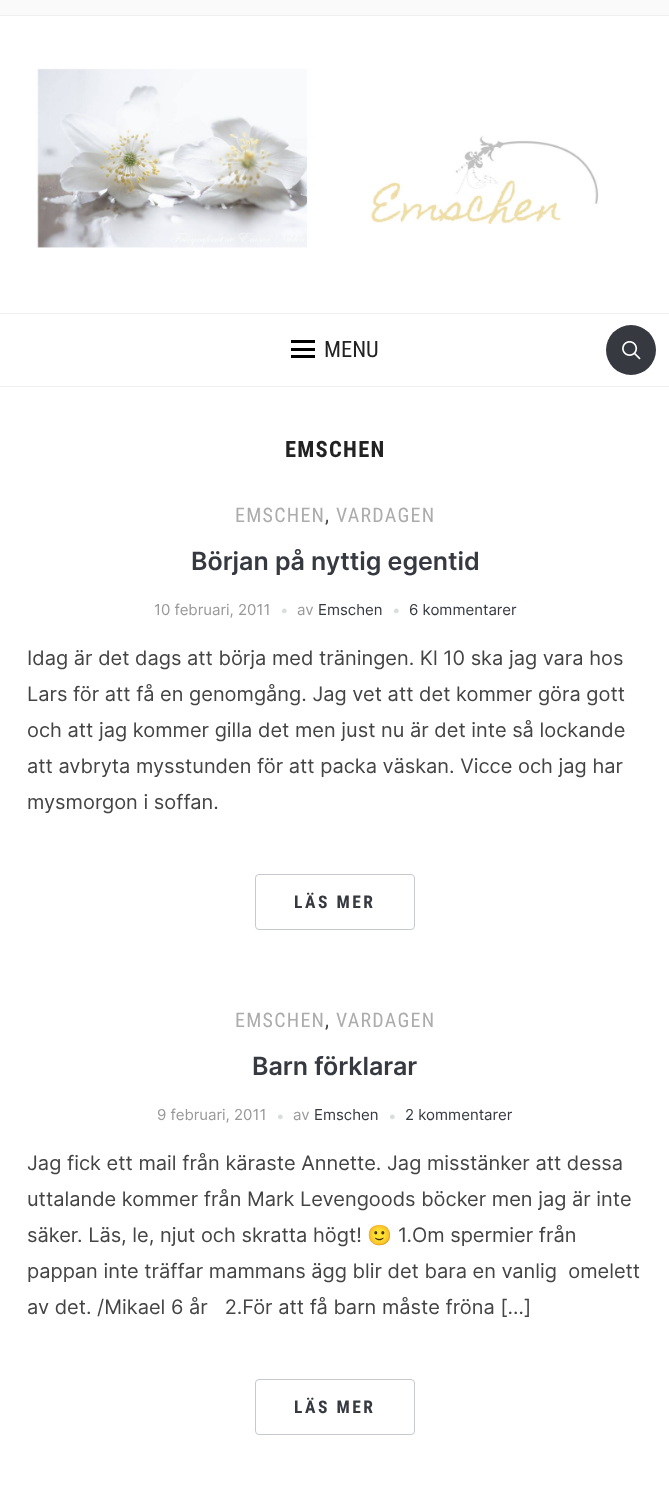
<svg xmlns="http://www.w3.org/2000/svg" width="669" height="1492">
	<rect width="100%" height="100%" fill="#FFFFFF" />
	<rect x="0" y="0" width="669" height="15" fill="#FAFAFA" />
	<rect x="0" y="15" width="669" height="1" fill="#F0F0F0" />
	<image x="36" y="68" width="563" height="180" href="assets/img1.png" />
	<rect x="0" y="313" width="669" height="1" fill="#F0F0F0" />
	<rect x="0" y="386" width="669" height="1" fill="#F0F0F0" />
	<rect x="291" y="340" width="24" height="3" fill="#000000" />
	<rect x="291" y="348" width="24" height="3" fill="#000000" />
	<rect x="291" y="355" width="24" height="3" fill="#000000" />
	<text x="324" y="357" font-family="Roboto Condensed" font-size="22.5" fill="#222222">MENU</text>
	<circle cx="631" cy="350" r="25" fill="#363940" />
	<image x="622" y="341" width="19" height="19" href="assets/img2.png" />
	<text x="285" y="457" font-family="Roboto Condensed" font-size="22.5" font-weight="700" letter-spacing="1.25" fill="#222222">EMSCHEN</text>
	<text x="235" y="522" font-family="Roboto Condensed" font-size="20" letter-spacing="1.25" fill="#ACACAC">EMSCHEN</text>
	<text x="325" y="522" font-family="Roboto Condensed" font-size="20" letter-spacing="1.25" fill="#444444">,</text>
	<text x="336" y="522" font-family="Roboto Condensed" font-size="20" letter-spacing="1.25" fill="#ACACAC">VARDAGEN</text>
	<text x="191" y="570" font-family="Inter" font-size="25" font-weight="600" fill="#363940">Början på nyttig egentid</text>
	<text x="154" y="615" font-family="Inter" font-size="15" fill="#999999">10 februari, 2011</text>
	<text x="281" y="614" font-family="Liberation Sans" font-size="11" fill="#DBDDDD">●</text>
	<text x="297" y="615" font-family="Inter" font-size="15" fill="#999999">av</text>
	<text x="318" y="615" font-family="Inter" font-size="15" fill="#363940">Emschen</text>
	<text x="393" y="614" font-family="Liberation Sans" font-size="11" fill="#DBDDDD">●</text>
	<text x="409" y="615" font-family="Inter" font-size="15" fill="#363940">6 kommentarer</text>
	<g font-family="Inter" font-size="20" fill="#444444">
		<text x="27" y="665">Idag är det dags att börja med träningen. Kl 10 ska jag vara hos</text>
		<text x="27" y="701">Lars för att få en genomgång. Jag vet att det kommer göra gott</text>
		<text x="27" y="737">och att jag kommer gilla det men just nu är det inte så lockande</text>
		<text x="27" y="773">att avbryta mysstunden för att packa väskan. Vicce och jag har</text>
		<text x="27" y="809">mysmorgon i soffan.</text>
	</g>
	<rect x="255.5" y="874.5" width="159" height="55" rx="3.5" fill="none" stroke="#C7C9CF" />
	<text x="294" y="908" font-family="Roboto Condensed" font-size="17.5" font-weight="700" letter-spacing="2.5" fill="#363940">LÄS MER</text>
	<text x="235" y="1027" font-family="Roboto Condensed" font-size="20" letter-spacing="1.25" fill="#ACACAC">EMSCHEN</text>
	<text x="325" y="1027" font-family="Roboto Condensed" font-size="20" letter-spacing="1.25" fill="#444444">,</text>
	<text x="336" y="1027" font-family="Roboto Condensed" font-size="20" letter-spacing="1.25" fill="#ACACAC">VARDAGEN</text>
	<text x="252" y="1075" font-family="Inter" font-size="25" font-weight="600" fill="#363940">Barn förklarar</text>
	<text x="157" y="1120" font-family="Inter" font-size="15" fill="#999999">9 februari, 2011</text>
	<text x="277" y="1120" font-family="Liberation Sans" font-size="11" fill="#DBDDDD">●</text>
	<text x="293" y="1120" font-family="Inter" font-size="15" fill="#999999">av</text>
	<text x="314" y="1120" font-family="Inter" font-size="15" fill="#363940">Emschen</text>
	<text x="389" y="1120" font-family="Liberation Sans" font-size="11" fill="#DBDDDD">●</text>
	<text x="405" y="1120" font-family="Inter" font-size="15" fill="#363940">2 kommentarer</text>
	<g font-family="Inter" font-size="20" fill="#444444">
		<text x="27" y="1170">Jag fick ett mail från käraste Annette. Jag misstänker att dessa</text>
		<text x="27" y="1206">uttalande kommer från Mark Levengoods böcker men jag är inte</text>
		<text x="27" y="1242">säker. Läs, le, njut och skratta högt!</text>
	</g>
	<text x="367" y="1242" font-family="Noto Color Emoji" font-size="20" fill="#444444">🙂</text>
	<g font-family="Inter" font-size="20" fill="#444444">
		<text x="398" y="1242">1.Om spermier från</text>
		<text x="27" y="1278" xml:space="preserve">pappan inte träffar mammans ägg blir det bara en vanlig  omelett</text>
		<text x="27" y="1314" xml:space="preserve">av det. /Mikael 6 år   2.För att få barn måste fröna […]</text>
	</g>
	<rect x="255.5" y="1379.5" width="159" height="55" rx="3.5" fill="none" stroke="#C7C9CF" />
	<text x="294" y="1413" font-family="Roboto Condensed" font-size="17.5" font-weight="700" letter-spacing="2.5" fill="#363940">LÄS MER</text>
</svg>
